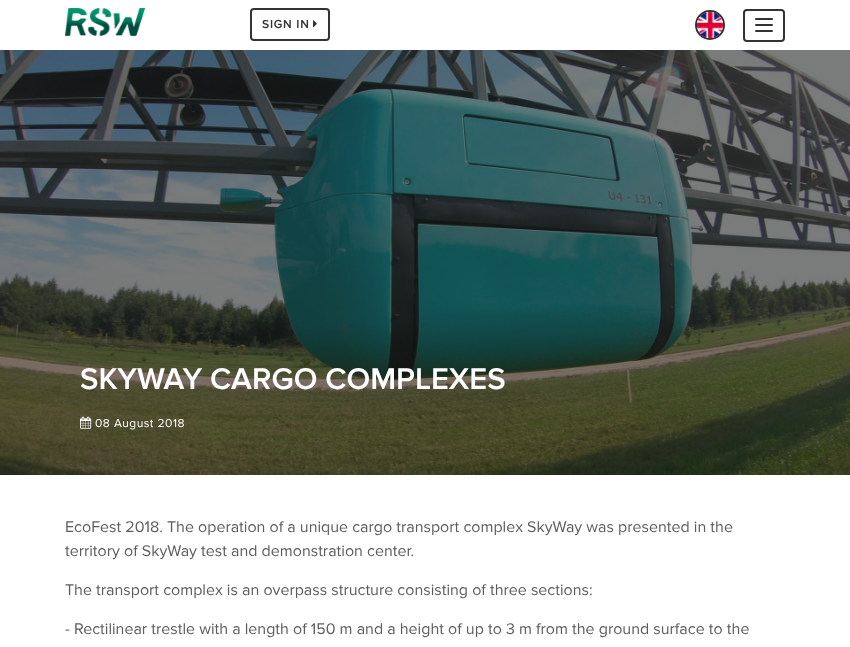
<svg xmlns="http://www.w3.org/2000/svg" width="850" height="647">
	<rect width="100%" height="100%" fill="#FFFFFF" />
	<image x="65" y="8" width="80" height="28" href="assets/img1.png" />
	<rect x="251" y="9" width="78" height="31" rx="3" fill="none" stroke="#333333" stroke-width="2" />
	<text x="262" y="28" font-family="Proxima Nova" font-size="12" font-weight="600" letter-spacing="0.75" fill="#333333">SIGN IN</text>
	<image x="313" y="20" width="4" height="8" href="assets/img2.png" />
	<circle cx="710" cy="25" r="14" fill="none" stroke="#333333" stroke-width="2" />
	<image x="697" y="12" width="26" height="26" href="assets/img3.png" />
	<rect x="744" y="10" width="40" height="31" rx="3" fill="none" stroke="#333333" stroke-width="2" />
	<rect x="755" y="18" width="18" height="2" rx="1" fill="#333333" />
	<rect x="755" y="24" width="18" height="2" rx="1" fill="#333333" />
	<rect x="755" y="30" width="18" height="2" rx="1" fill="#333333" />
	<image x="0" y="50" width="850" height="425" href="assets/img4.png" />
	<text x="80" y="389" font-family="Proxima Nova" font-size="31" font-weight="600" fill="#FFFFFF">SKYWAY CARGO COMPLEXES</text>
	<image x="80" y="416" width="12" height="13" href="assets/img5.png" />
	<text x="95" y="427" font-family="Proxima Nova" font-size="12" letter-spacing="0.5" fill="#FFFFFF">08 August 2018</text>
	<g font-family="Proxima Nova" font-size="16" fill="#5C5C5C">
		<text x="65" y="532">EcoFest 2018. The operation of a unique cargo transport complex SkyWay was presented in the</text>
		<text x="65" y="556">territory of SkyWay test and demonstration center.</text>
		<text x="65" y="595">The transport complex is an overpass structure consisting of three sections:</text>
		<text x="65" y="634">- Rectilinear trestle with a length of 150 m and a height of up to 3 m from the ground surface to the</text>
	</g>
</svg>
